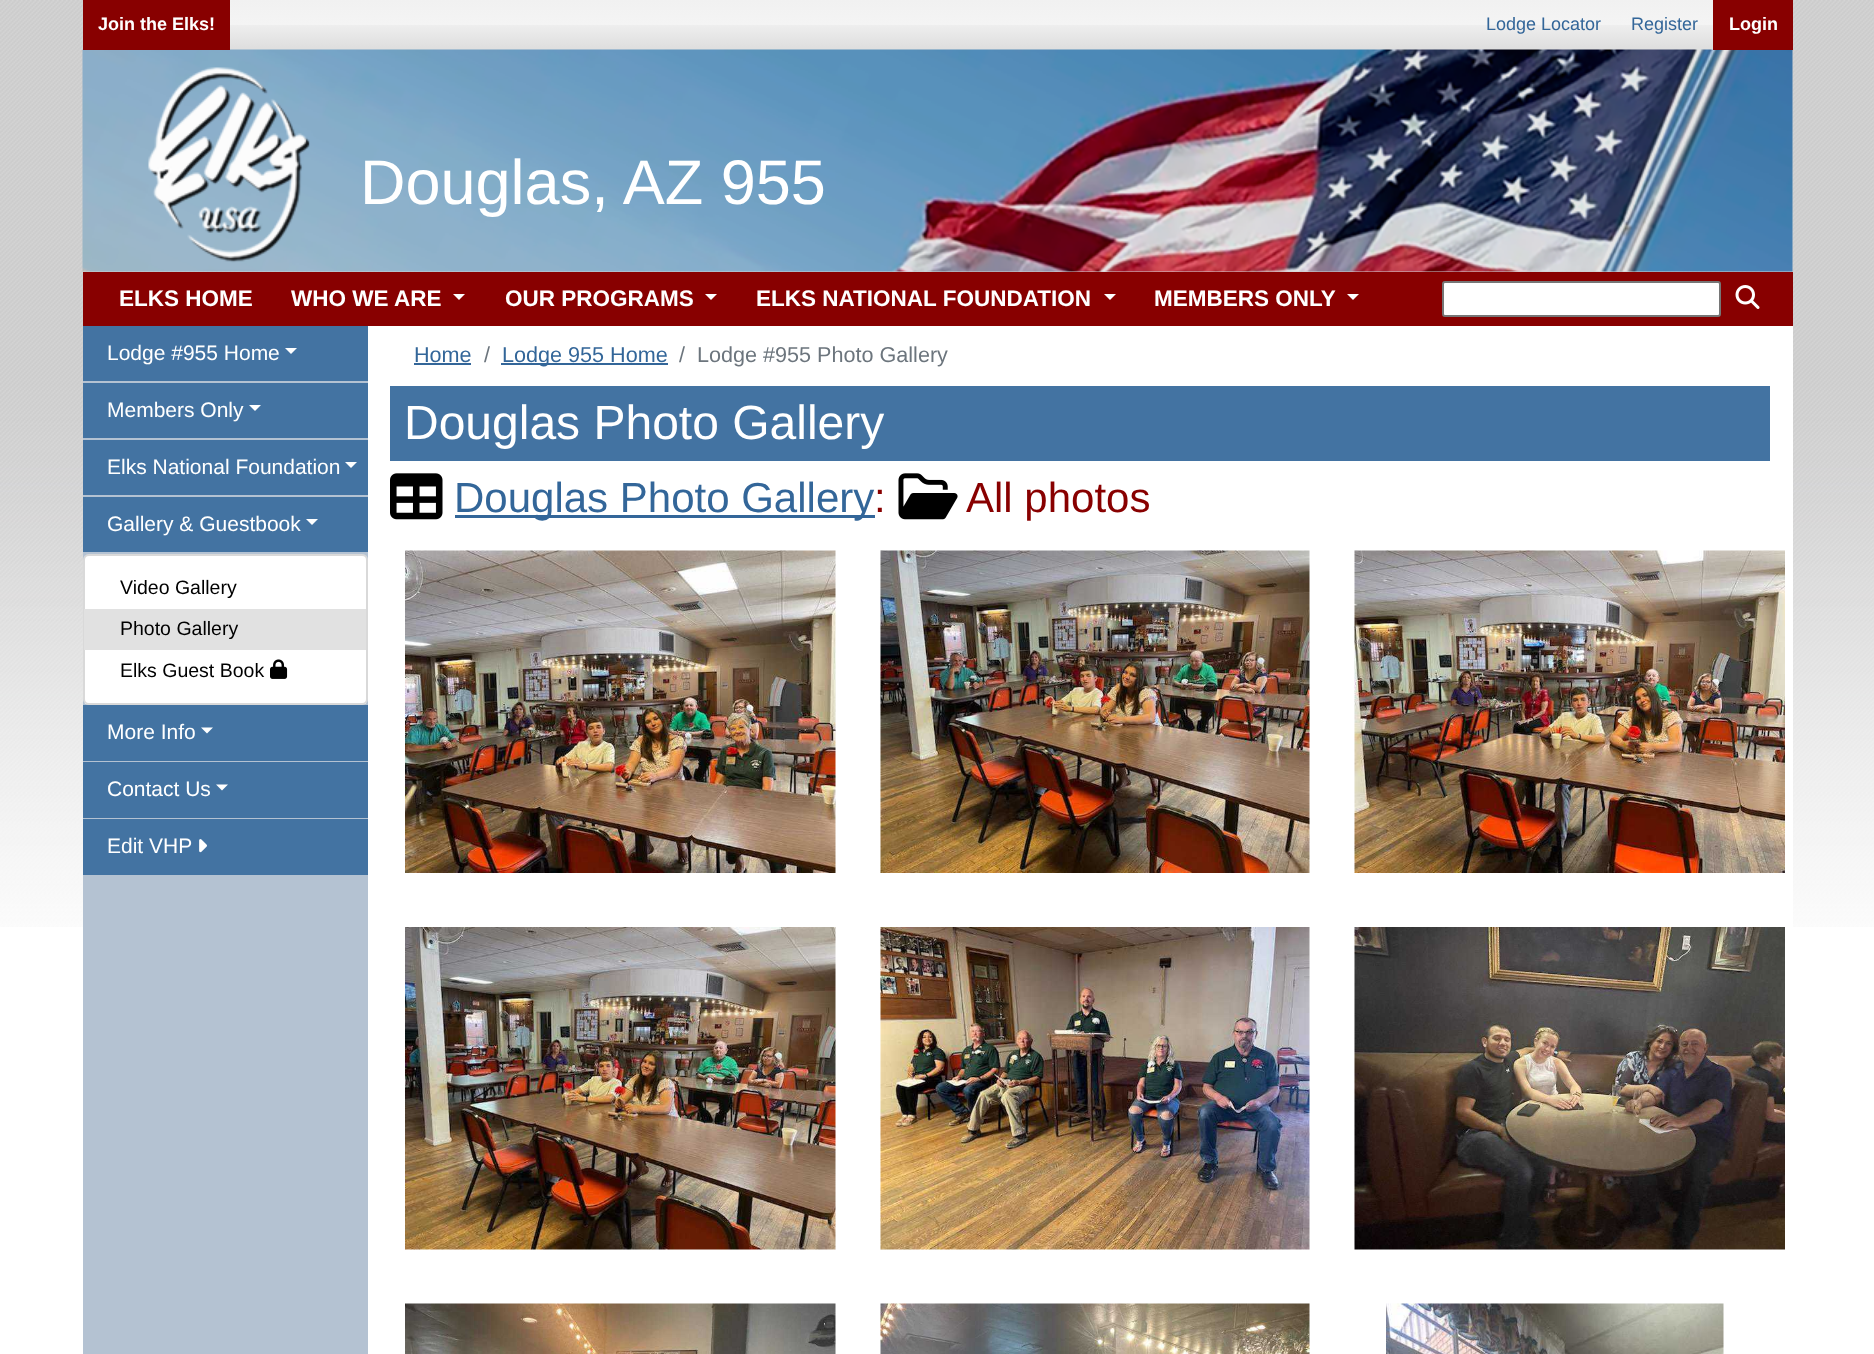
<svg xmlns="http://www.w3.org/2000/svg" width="1874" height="1354">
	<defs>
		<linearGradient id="g1" gradientUnits="userSpaceOnUse" x1="938" y1="0" x2="938" y2="50"><stop offset="0" stop-color="#F1F1F1" /><stop offset="0.5" stop-color="#F4F4F4" /><stop offset="0.5" stop-color="#EEEEEE" /><stop offset="0.95" stop-color="#DFDFDF" /></linearGradient>
	</defs>
	<rect width="100%" height="100%" fill="#FFFFFF" />
	<image x="0" y="0" width="1874" height="927" href="assets/img1.png" />
	<rect x="230" y="0" width="1483" height="50" fill="url(#g1)" />
	<image x="82" y="49" width="1711" height="223" href="assets/img2.png" />
	<rect x="83" y="0" width="147" height="50" fill="#880000" />
	<text x="98" y="30" font-family="Liberation Sans" font-size="18" font-weight="700" fill="#FFFFFF">Join the Elks!</text>
	<g font-family="Liberation Sans" font-size="18" fill="#336699">
		<text x="1486" y="30">Lodge Locator</text>
		<text x="1631" y="30">Register</text>
	</g>
	<rect x="1713" y="0" width="80" height="50" fill="#880000" />
	<text x="1729" y="30" font-family="Liberation Sans" font-size="18" font-weight="700" fill="#FFFFFF">Login</text>
	<text x="360" y="204" font-family="Liberation Sans" font-size="63" fill="#FFFFFF">Douglas, AZ 955</text>
	<rect x="83" y="272" width="1710" height="54" fill="#880000" />
	<g font-family="Liberation Sans" font-size="22.5" font-weight="700" fill="#FFFFFF">
		<text x="119" y="306">ELKS HOME</text>
		<text x="291" y="306">WHO WE ARE</text>
	</g>
	<path d="M453 294H465L459 300Z" fill="#FFFFFF" />
	<text x="505" y="306" font-family="Liberation Sans" font-size="22.5" font-weight="700" fill="#FFFFFF">OUR PROGRAMS</text>
	<path d="M705 294H717L711 300Z" fill="#FFFFFF" />
	<text x="756" y="306" font-family="Liberation Sans" font-size="22.5" font-weight="700" fill="#FFFFFF">ELKS NATIONAL FOUNDATION</text>
	<path d="M1104 294H1116L1110 300Z" fill="#FFFFFF" />
	<text x="1154" y="306" font-family="Liberation Sans" font-size="22.5" font-weight="700" fill="#FFFFFF">MEMBERS ONLY</text>
	<path d="M1347 294H1359L1353 300Z" fill="#FFFFFF" />
	<rect x="1443" y="282" width="277" height="34" rx="2" fill="#FFFFFF" stroke="#767676" stroke-width="2" />
	<image x="1735" y="285" width="25" height="24" href="assets/img3.png" />
	<rect x="368" y="326" width="1425" height="601" fill="#FFFFFF" />
	<rect x="83" y="381" width="285" height="973" fill="#B4C2D2" />
	<rect x="83" y="326" width="285" height="55" fill="#4373A2" />
	<text x="107" y="360" font-family="Liberation Sans" font-size="21" fill="#FFFFFF">Lodge #955 Home</text>
	<path d="M285 348H297L291 354Z" fill="#FFFFFF" />
	<rect x="83" y="383" width="285" height="55" fill="#4373A2" />
	<text x="107" y="417" font-family="Liberation Sans" font-size="21" fill="#FFFFFF">Members Only</text>
	<path d="M249 405H261L255 411Z" fill="#FFFFFF" />
	<rect x="83" y="440" width="285" height="55" fill="#4373A2" />
	<text x="107" y="474" font-family="Liberation Sans" font-size="21" fill="#FFFFFF">Elks National Foundation</text>
	<path d="M345 462H357L351 468Z" fill="#FFFFFF" />
	<rect x="83" y="497" width="285" height="55" fill="#4373A2" />
	<text x="107" y="531" font-family="Liberation Sans" font-size="21" fill="#FFFFFF">Gallery &amp; Guestbook</text>
	<path d="M306 519H318L312 525Z" fill="#FFFFFF" />
	<rect x="83" y="554" width="285" height="151" rx="6" fill="#FFFFFF" />
	<rect x="84" y="555" width="283" height="149" rx="5" fill="none" stroke="#000000" stroke-opacity="0.15" stroke-width="2" />
	<text x="120" y="594" font-family="Liberation Sans" font-size="19.5" fill="#000000">Video Gallery</text>
	<rect x="84" y="609" width="282" height="41" fill="#E1E1E1" />
	<g font-family="Liberation Sans" font-size="19.5" fill="#000000">
		<text x="120" y="635">Photo Gallery</text>
		<text x="120" y="677">Elks Guest Book</text>
	</g>
	<image x="270" y="659" width="18" height="20" href="assets/img4.png" />
	<rect x="83" y="705" width="285" height="56" fill="#4373A2" />
	<text x="107" y="739" font-family="Liberation Sans" font-size="21" fill="#FFFFFF">More Info</text>
	<path d="M201 727.5H213L207 733.5Z" fill="#FFFFFF" />
	<rect x="83" y="762" width="285" height="56" fill="#4373A2" />
	<text x="107" y="796" font-family="Liberation Sans" font-size="21" fill="#FFFFFF">Contact Us</text>
	<path d="M216 784.5H228L222 790.5Z" fill="#FFFFFF" />
	<rect x="83" y="819" width="285" height="56" fill="#4373A2" />
	<text x="107" y="853" font-family="Liberation Sans" font-size="21" fill="#FFFFFF">Edit VHP</text>
	<image x="199" y="839" width="8" height="14" href="assets/img5.png" />
	<text x="414" y="362" font-family="Liberation Sans" font-size="21.6" fill="#336699">Home</text>
	<rect x="414" y="363" width="57" height="2" fill="#336699" />
	<text x="484" y="362" font-family="Liberation Sans" font-size="21.6" fill="#6C757D">/</text>
	<rect x="501" y="363" width="167" height="2" fill="#336699" />
	<text x="502" y="362" font-family="Liberation Sans" font-size="21.6" fill="#336699">Lodge 955 Home</text>
	<g font-family="Liberation Sans" font-size="21.6" fill="#6C757D">
		<text x="679" y="362">/</text>
		<text x="697" y="362">Lodge #955 Photo Gallery</text>
	</g>
	<rect x="390" y="386" width="1380" height="75" fill="#4373A2" />
	<text x="404" y="439" font-family="Liberation Sans" font-size="48" fill="#FFFFFF">Douglas Photo Gallery</text>
	<image x="390" y="473" width="53" height="47" href="assets/img6.png" />
	<rect x="455" y="515" width="420" height="3" fill="#336699" />
	<text x="454" y="512" font-family="Liberation Sans" font-size="42" fill="#336699">Douglas Photo Gallery</text>
	<text x="874" y="512" font-family="Liberation Sans" font-size="42" fill="#880000">:</text>
	<image x="898" y="473" width="60" height="47" href="assets/img7.png" />
	<text x="966" y="512" font-family="Liberation Sans" font-size="42" fill="#880000">All photos</text>
	<image x="405" y="550" width="431" height="323" href="assets/img8.png" />
	<image x="880" y="550" width="430" height="323" href="assets/img9.png" />
	<image x="1354" y="550" width="431" height="323" href="assets/img10.png" />
	<image x="405" y="927" width="431" height="323" href="assets/img11.png" />
	<image x="880" y="927" width="430" height="323" href="assets/img12.png" />
	<image x="1354" y="927" width="431" height="323" href="assets/img13.png" />
	<image x="405" y="1303" width="431" height="51" href="assets/img14.png" />
	<image x="880" y="1303" width="430" height="51" href="assets/img15.png" />
	<image x="1386" y="1303" width="338" height="51" href="assets/img16.png" />
</svg>
